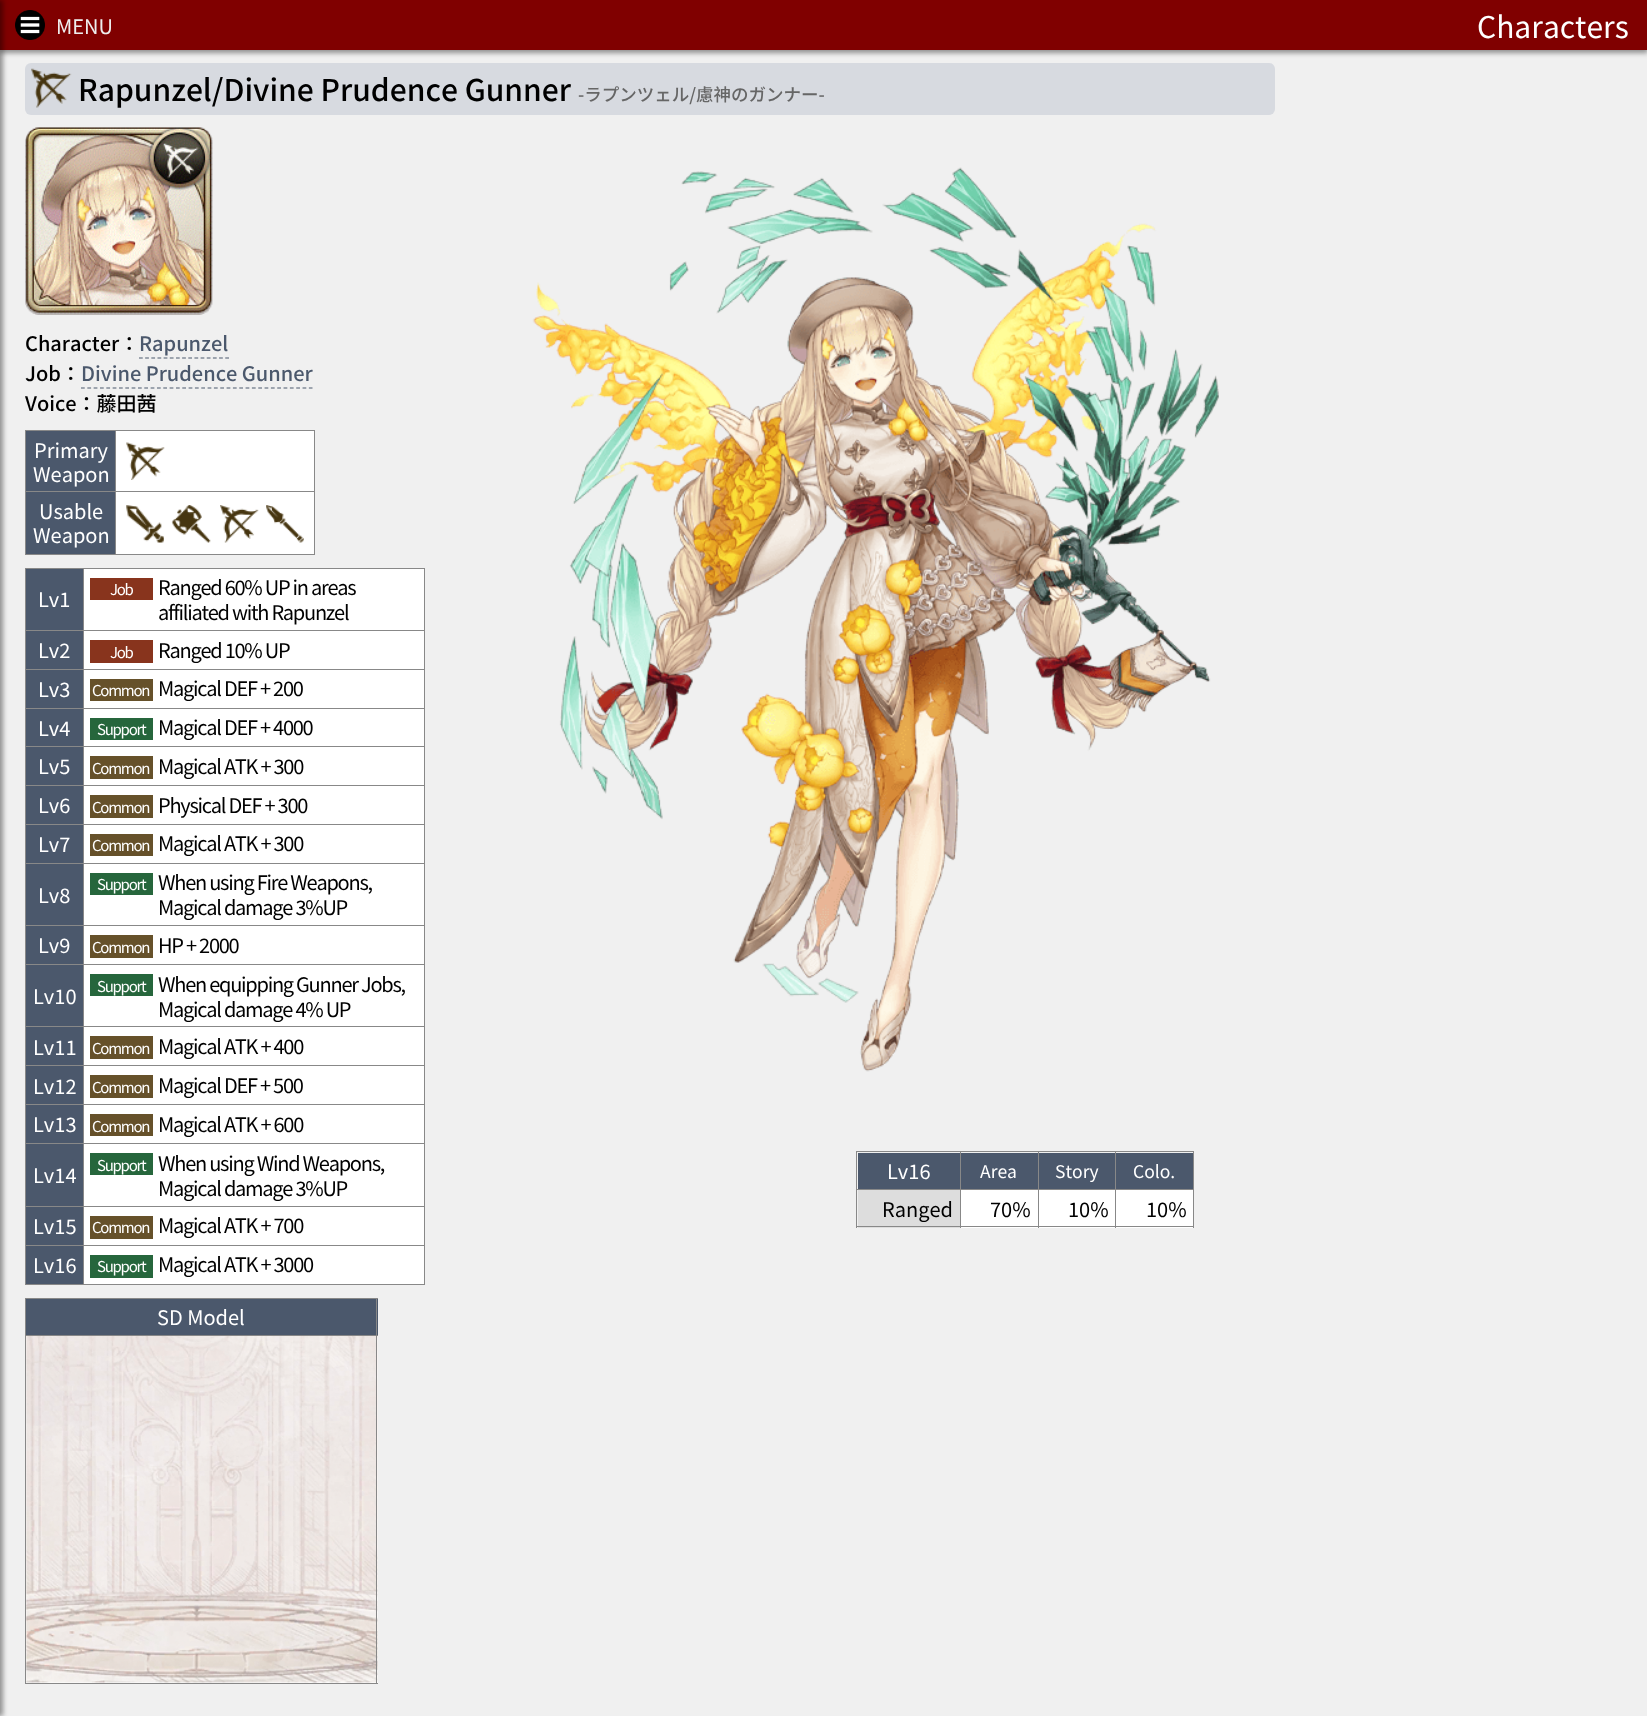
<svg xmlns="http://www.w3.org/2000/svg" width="1647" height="1716">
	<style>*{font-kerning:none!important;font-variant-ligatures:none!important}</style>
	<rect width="100%" height="100%" fill="#F0F0F0" />
	<rect x="0" y="3" width="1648" height="50" fill="#000000" fill-opacity="0.4" filter="blur(2.5px)" />
	<rect x="0" y="0" width="1647" height="50" fill="#800000" />
	<rect x="-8" y="0" width="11" height="1716" fill="#000000" fill-opacity="0.4" filter="blur(2.5px)" />
	<image x="15" y="10" width="30" height="30" href="assets/img1.png" />
	<text x="56" y="34" font-family="Noto Sans TC" font-size="20" fill="#EEEEEE">MENU</text>
	<text x="1477" y="38" font-family="Noto Sans TC" font-size="30" fill="#FFFFFF">Characters</text>
	<rect x="25" y="63" width="1250" height="52" rx="6" fill="#D7DAE0" />
	<image x="31" y="68" width="41" height="40" href="assets/img2.png" />
	<text x="78" y="101" font-family="Noto Sans TC" font-size="30" font-weight="500" fill="#000000">Rapunzel/Divine Prudence Gunner</text>
	<text x="578" y="101" font-family="Noto Sans TC" font-size="17.5" font-weight="500" fill="#666666">-ラプンツェル/慮神のガンナー-</text>
	<image x="25" y="127" width="188" height="188" href="assets/img3.png" />
	<text x="25" y="351" font-family="Noto Sans TC" font-size="20" font-weight="500" fill="#000000">Character：</text>
	<text x="139" y="351" font-family="Noto Sans TC" font-size="20" font-weight="500" fill="#4B586C">Rapunzel</text>
	<path d="M139 358H229" fill="none" stroke="#4B586C" stroke-width="1.2" stroke-dasharray="3.75 2.41" />
	<text x="25" y="381" font-family="Noto Sans TC" font-size="20" font-weight="500" fill="#000000">Job：</text>
	<text x="81" y="381" font-family="Noto Sans TC" font-size="20" font-weight="500" fill="#4B586C">Divine Prudence Gunner</text>
	<path d="M81 388H312.5" fill="none" stroke="#4B586C" stroke-width="1.2" stroke-dasharray="3.75 2.58" />
	<text x="25" y="411" font-family="Noto Sans TC" font-size="20" font-weight="500" fill="#000000">Voice：藤田茜</text>
	<rect x="25" y="430" width="290" height="1" fill="#888888" />
	<rect x="314" y="430" width="1" height="125" fill="#888888" />
	<rect x="25" y="554" width="290" height="1" fill="#888888" />
	<rect x="25" y="430" width="1" height="125" fill="#888888" />
	<rect x="26" y="431" width="89" height="123" fill="#4B586C" />
	<g font-family="Noto Sans TC" font-size="20" fill="#FFFFFF">
		<text x="34" y="458">Primary</text>
		<text x="33" y="482">Weapon</text>
	</g>
	<rect x="116" y="431" width="198" height="123" fill="#FFFFFF" />
	<rect x="115" y="491" width="200" height="1" fill="#888888" />
	<rect x="115" y="491" width="1" height="64" fill="#888888" />
	<rect x="25" y="491" width="91" height="1" fill="#888888" />
	<rect x="115" y="430" width="1" height="63" fill="#888888" />
	<image x="126" y="442" width="39" height="38" href="assets/img4.png" />
	<g font-family="Noto Sans TC" font-size="20" fill="#FFFFFF">
		<text x="39" y="519">Usable</text>
		<text x="33" y="543">Weapon</text>
	</g>
	<image x="126" y="505" width="38" height="38" href="assets/img5.png" />
	<image x="171" y="505" width="40" height="38" href="assets/img6.png" />
	<image x="220" y="505" width="39" height="38" href="assets/img7.png" />
	<image x="266" y="505" width="38" height="38" href="assets/img8.png" />
	<rect x="25" y="568" width="400" height="1" fill="#888888" />
	<rect x="424" y="568" width="1" height="717" fill="#888888" />
	<rect x="25" y="1284" width="400" height="1" fill="#888888" />
	<rect x="25" y="568" width="1" height="717" fill="#888888" />
	<rect x="26" y="569" width="57" height="61" fill="#4B586C" />
	<text x="38" y="607" font-family="Noto Sans TC" font-size="20" fill="#FFFFFF">Lv1</text>
	<rect x="84" y="569" width="340" height="61" fill="#FFFFFF" />
	<rect x="83" y="630" width="342" height="1" fill="#888888" />
	<rect x="83" y="669" width="342" height="1" fill="#888888" />
	<rect x="83" y="708" width="342" height="1" fill="#888888" />
	<rect x="26" y="709" width="57" height="76" fill="#4B586C" />
	<rect x="84" y="709" width="340" height="76" fill="#FFFFFF" />
	<rect x="83" y="746" width="342" height="1" fill="#888888" />
	<rect x="83" y="785" width="342" height="1" fill="#888888" />
	<rect x="83" y="824" width="342" height="1" fill="#888888" />
	<rect x="83" y="863" width="342" height="1" fill="#888888" />
	<rect x="83" y="925" width="342" height="1" fill="#888888" />
	<rect x="83" y="964" width="342" height="1" fill="#888888" />
	<rect x="26" y="965" width="57" height="100" fill="#4B586C" />
	<rect x="84" y="965" width="340" height="100" fill="#FFFFFF" />
	<rect x="83" y="1026" width="342" height="1" fill="#888888" />
	<rect x="83" y="1065" width="342" height="1" fill="#888888" />
	<rect x="83" y="1104" width="342" height="1" fill="#888888" />
	<rect x="83" y="1143" width="342" height="1" fill="#888888" />
	<rect x="83" y="1206" width="342" height="1" fill="#888888" />
	<rect x="83" y="1245" width="342" height="1" fill="#888888" />
	<rect x="83" y="1245" width="1" height="40" fill="#888888" />
	<rect x="25" y="1245" width="59" height="1" fill="#888888" />
	<rect x="83" y="1206" width="1" height="40" fill="#888888" />
	<rect x="25" y="1206" width="59" height="1" fill="#888888" />
	<rect x="83" y="1143" width="1" height="65" fill="#888888" />
	<rect x="25" y="1143" width="59" height="1" fill="#888888" />
	<rect x="83" y="1104" width="1" height="40" fill="#888888" />
	<rect x="25" y="1104" width="59" height="1" fill="#888888" />
	<rect x="83" y="1065" width="1" height="40" fill="#888888" />
	<rect x="25" y="1065" width="59" height="1" fill="#888888" />
	<rect x="83" y="1026" width="1" height="40" fill="#888888" />
	<rect x="25" y="1026" width="59" height="1" fill="#888888" />
	<rect x="83" y="964" width="1" height="64" fill="#888888" />
	<rect x="25" y="964" width="59" height="1" fill="#888888" />
	<rect x="83" y="925" width="1" height="40" fill="#888888" />
	<rect x="25" y="925" width="59" height="1" fill="#888888" />
	<rect x="83" y="863" width="1" height="63" fill="#888888" />
	<rect x="25" y="863" width="59" height="1" fill="#888888" />
	<rect x="83" y="824" width="1" height="40" fill="#888888" />
	<rect x="25" y="824" width="59" height="1" fill="#888888" />
	<rect x="83" y="785" width="1" height="40" fill="#888888" />
	<rect x="25" y="785" width="59" height="1" fill="#888888" />
	<rect x="83" y="746" width="1" height="40" fill="#888888" />
	<rect x="25" y="746" width="59" height="1" fill="#888888" />
	<rect x="83" y="708" width="1" height="40" fill="#888888" />
	<rect x="25" y="708" width="59" height="1" fill="#888888" />
	<rect x="83" y="669" width="1" height="40" fill="#888888" />
	<rect x="25" y="669" width="59" height="1" fill="#888888" />
	<rect x="83" y="630" width="1" height="40" fill="#888888" />
	<rect x="25" y="630" width="59" height="1" fill="#888888" />
	<rect x="83" y="568" width="1" height="63" fill="#888888" />
	<rect x="90" y="578" width="63" height="22" fill="#88341D" />
	<text x="110" y="595" font-family="Noto Sans TC" font-size="15" letter-spacing="-1.25" fill="#FFFFFF">Job</text>
	<g font-family="Noto Sans TC" font-size="20" letter-spacing="-1.25" fill="#000000">
		<text x="158" y="595">Ranged 60% UP in areas</text>
		<text x="158" y="620">affiliated with Rapunzel</text>
	</g>
	<rect x="26" y="631" width="57" height="38" fill="#4B586C" />
	<text x="38" y="658" font-family="Noto Sans TC" font-size="20" fill="#FFFFFF">Lv2</text>
	<rect x="84" y="631" width="340" height="38" fill="#FFFFFF" />
	<rect x="90" y="640" width="63" height="23" fill="#88341D" />
	<text x="110" y="658" font-family="Noto Sans TC" font-size="15" letter-spacing="-1.25" fill="#FFFFFF">Job</text>
	<text x="158" y="658" font-family="Noto Sans TC" font-size="20" letter-spacing="-1.25" fill="#000000">Ranged 10% UP</text>
	<rect x="26" y="670" width="57" height="38" fill="#4B586C" />
	<text x="38" y="697" font-family="Noto Sans TC" font-size="20" fill="#FFFFFF">Lv3</text>
	<rect x="84" y="670" width="340" height="38" fill="#FFFFFF" />
	<rect x="90" y="679" width="63" height="22" fill="#66512A" />
	<text x="92" y="696" font-family="Noto Sans TC" font-size="15" letter-spacing="-1.25" fill="#FFFFFF">Common</text>
	<text x="158" y="696" font-family="Noto Sans TC" font-size="20" letter-spacing="-1.25" fill="#000000">Magical DEF + 200</text>
	<text x="38" y="736" font-family="Noto Sans TC" font-size="20" fill="#FFFFFF">Lv4</text>
	<rect x="90" y="718" width="63" height="22" fill="#26663C" />
	<text x="97" y="735" font-family="Noto Sans TC" font-size="15" letter-spacing="-1.25" fill="#FFFFFF">Support</text>
	<text x="158" y="735" font-family="Noto Sans TC" font-size="20" letter-spacing="-1.25" fill="#000000">Magical DEF + 4000</text>
	<text x="38" y="774" font-family="Noto Sans TC" font-size="20" fill="#FFFFFF">Lv5</text>
	<rect x="90" y="756" width="63" height="23" fill="#66512A" />
	<text x="92" y="774" font-family="Noto Sans TC" font-size="15" letter-spacing="-1.25" fill="#FFFFFF">Common</text>
	<text x="158" y="774" font-family="Noto Sans TC" font-size="20" letter-spacing="-1.25" fill="#000000">Magical ATK + 300</text>
	<rect x="26" y="786" width="57" height="38" fill="#4B586C" />
	<text x="38" y="813" font-family="Noto Sans TC" font-size="20" fill="#FFFFFF">Lv6</text>
	<rect x="84" y="786" width="340" height="38" fill="#FFFFFF" />
	<rect x="90" y="795" width="63" height="23" fill="#66512A" />
	<text x="92" y="813" font-family="Noto Sans TC" font-size="15" letter-spacing="-1.25" fill="#FFFFFF">Common</text>
	<text x="158" y="813" font-family="Noto Sans TC" font-size="20" letter-spacing="-1.25" fill="#000000">Physical DEF + 300</text>
	<rect x="26" y="825" width="57" height="38" fill="#4B586C" />
	<text x="38" y="852" font-family="Noto Sans TC" font-size="20" fill="#FFFFFF">Lv7</text>
	<rect x="84" y="825" width="340" height="38" fill="#FFFFFF" />
	<rect x="90" y="834" width="63" height="22" fill="#66512A" />
	<text x="92" y="851" font-family="Noto Sans TC" font-size="15" letter-spacing="-1.25" fill="#FFFFFF">Common</text>
	<text x="158" y="851" font-family="Noto Sans TC" font-size="20" letter-spacing="-1.25" fill="#000000">Magical ATK + 300</text>
	<rect x="26" y="864" width="57" height="61" fill="#4B586C" />
	<text x="38" y="903" font-family="Noto Sans TC" font-size="20" fill="#FFFFFF">Lv8</text>
	<rect x="84" y="864" width="340" height="61" fill="#FFFFFF" />
	<rect x="90" y="873" width="63" height="22" fill="#26663C" />
	<text x="97" y="890" font-family="Noto Sans TC" font-size="15" letter-spacing="-1.25" fill="#FFFFFF">Support</text>
	<g font-family="Noto Sans TC" font-size="20" letter-spacing="-1.25" fill="#000000">
		<text x="158" y="890">When using Fire Weapons,</text>
		<text x="158" y="915">Magical damage 3%UP</text>
	</g>
	<rect x="26" y="926" width="57" height="38" fill="#4B586C" />
	<text x="38" y="953" font-family="Noto Sans TC" font-size="20" fill="#FFFFFF">Lv9</text>
	<rect x="84" y="926" width="340" height="38" fill="#FFFFFF" />
	<rect x="90" y="935" width="63" height="23" fill="#66512A" />
	<text x="92" y="953" font-family="Noto Sans TC" font-size="15" letter-spacing="-1.25" fill="#FFFFFF">Common</text>
	<text x="158" y="953" font-family="Noto Sans TC" font-size="20" letter-spacing="-1.25" fill="#000000">HP + 2000</text>
	<text x="33" y="1004" font-family="Noto Sans TC" font-size="20" fill="#FFFFFF">Lv10</text>
	<rect x="90" y="974" width="63" height="22" fill="#26663C" />
	<text x="97" y="992" font-family="Noto Sans TC" font-size="15" letter-spacing="-1.25" fill="#FFFFFF">Support</text>
	<g font-family="Noto Sans TC" font-size="20" letter-spacing="-1.25" fill="#000000">
		<text x="158" y="992">When equipping Gunner Jobs,</text>
		<text x="158" y="1017">Magical damage 4% UP</text>
	</g>
	<text x="33" y="1055" font-family="Noto Sans TC" font-size="20" fill="#FFFFFF">Lv11</text>
	<rect x="90" y="1036" width="63" height="23" fill="#66512A" />
	<text x="92" y="1054" font-family="Noto Sans TC" font-size="15" letter-spacing="-1.25" fill="#FFFFFF">Common</text>
	<text x="158" y="1054" font-family="Noto Sans TC" font-size="20" letter-spacing="-1.25" fill="#000000">Magical ATK + 400</text>
	<rect x="26" y="1066" width="57" height="38" fill="#4B586C" />
	<text x="33" y="1094" font-family="Noto Sans TC" font-size="20" fill="#FFFFFF">Lv12</text>
	<rect x="84" y="1066" width="340" height="38" fill="#FFFFFF" />
	<rect x="90" y="1075" width="63" height="23" fill="#66512A" />
	<text x="92" y="1093" font-family="Noto Sans TC" font-size="15" letter-spacing="-1.25" fill="#FFFFFF">Common</text>
	<text x="158" y="1093" font-family="Noto Sans TC" font-size="20" letter-spacing="-1.25" fill="#000000">Magical DEF + 500</text>
	<rect x="26" y="1105" width="57" height="38" fill="#4B586C" />
	<text x="33" y="1132" font-family="Noto Sans TC" font-size="20" fill="#FFFFFF">Lv13</text>
	<rect x="84" y="1105" width="340" height="38" fill="#FFFFFF" />
	<rect x="90" y="1114" width="63" height="22" fill="#66512A" />
	<text x="92" y="1132" font-family="Noto Sans TC" font-size="15" letter-spacing="-1.25" fill="#FFFFFF">Common</text>
	<text x="158" y="1132" font-family="Noto Sans TC" font-size="20" letter-spacing="-1.25" fill="#000000">Magical ATK + 600</text>
	<rect x="26" y="1144" width="57" height="62" fill="#4B586C" />
	<text x="33" y="1183" font-family="Noto Sans TC" font-size="20" fill="#FFFFFF">Lv14</text>
	<rect x="84" y="1144" width="340" height="62" fill="#FFFFFF" />
	<rect x="90" y="1153" width="63" height="22" fill="#26663C" />
	<text x="97" y="1171" font-family="Noto Sans TC" font-size="15" letter-spacing="-1.25" fill="#FFFFFF">Support</text>
	<g font-family="Noto Sans TC" font-size="20" letter-spacing="-1.25" fill="#000000">
		<text x="158" y="1171">When using Wind Weapons,</text>
		<text x="158" y="1196">Magical damage 3%UP</text>
	</g>
	<rect x="26" y="1207" width="57" height="38" fill="#4B586C" />
	<text x="33" y="1234" font-family="Noto Sans TC" font-size="20" fill="#FFFFFF">Lv15</text>
	<rect x="84" y="1207" width="340" height="38" fill="#FFFFFF" />
	<rect x="90" y="1216" width="63" height="23" fill="#66512A" />
	<text x="92" y="1233" font-family="Noto Sans TC" font-size="15" letter-spacing="-1.25" fill="#FFFFFF">Common</text>
	<text x="158" y="1233" font-family="Noto Sans TC" font-size="20" letter-spacing="-1.25" fill="#000000">Magical ATK + 700</text>
	<rect x="26" y="1246" width="57" height="38" fill="#4B586C" />
	<text x="33" y="1273" font-family="Noto Sans TC" font-size="20" fill="#FFFFFF">Lv16</text>
	<rect x="84" y="1246" width="340" height="38" fill="#FFFFFF" />
	<rect x="90" y="1255" width="63" height="23" fill="#26663C" />
	<text x="97" y="1272" font-family="Noto Sans TC" font-size="15" letter-spacing="-1.25" fill="#FFFFFF">Support</text>
	<text x="158" y="1272" font-family="Noto Sans TC" font-size="20" letter-spacing="-1.25" fill="#000000">Magical ATK + 3000</text>
	<rect x="25" y="1298" width="353" height="1" fill="#888888" />
	<rect x="26" y="1299" width="352" height="36" fill="#4B586C" />
	<rect x="26" y="1336" width="352" height="347" fill="#FFFFFF" />
	<image x="26" y="1336" width="352" height="347" href="assets/img9.png" />
	<rect x="376" y="1298" width="1" height="386" fill="#888888" />
	<rect x="25" y="1683" width="353" height="1" fill="#888888" />
	<rect x="25" y="1298" width="1" height="386" fill="#888888" />
	<text x="157" y="1325" font-family="Noto Sans TC" font-size="20" fill="#FFFFFF">SD Model</text>
	<rect x="25" y="1335" width="353" height="1" fill="#888888" />
	<image x="532" y="167" width="687" height="905" href="assets/img10.png" />
	<rect x="858" y="1153" width="102" height="36" fill="#4B586C" />
	<rect x="1115" y="1151" width="79" height="1" fill="#888888" />
	<rect x="1115" y="1189" width="79" height="1" fill="#888888" />
	<rect x="1116" y="1190" width="77" height="38" fill="#FFFFFF" />
	<rect x="1193" y="1189" width="1" height="39" fill="#888888" />
	<rect x="1115" y="1226" width="79" height="1" fill="#888888" />
	<rect x="1115" y="1189" width="1" height="39" fill="#888888" />
	<rect x="1038" y="1189" width="78" height="1" fill="#888888" />
	<rect x="1115" y="1151" width="1" height="39" fill="#888888" />
	<rect x="1038" y="1151" width="78" height="1" fill="#888888" />
	<rect x="1039" y="1190" width="76" height="38" fill="#FFFFFF" />
	<rect x="1038" y="1226" width="78" height="1" fill="#888888" />
	<rect x="1038" y="1189" width="1" height="39" fill="#888888" />
	<rect x="960" y="1189" width="79" height="1" fill="#888888" />
	<rect x="1038" y="1151" width="1" height="39" fill="#888888" />
	<rect x="960" y="1151" width="79" height="1" fill="#888888" />
	<rect x="961" y="1190" width="77" height="38" fill="#FFFFFF" />
	<rect x="960" y="1226" width="79" height="1" fill="#888888" />
	<rect x="960" y="1189" width="1" height="39" fill="#888888" />
	<rect x="856" y="1189" width="105" height="1" fill="#888888" />
	<rect x="960" y="1151" width="1" height="39" fill="#888888" />
	<rect x="856" y="1151" width="105" height="1" fill="#888888" />
	<rect x="858" y="1190" width="102" height="38" fill="#DDDDDD" />
	<rect x="856" y="1226" width="105" height="1" fill="#888888" />
	<rect x="856" y="1189" width="1" height="39" fill="#888888" />
	<rect x="856" y="1151" width="1" height="39" fill="#888888" />
	<text x="887" y="1179" font-family="Noto Sans TC" font-size="20" fill="#FFFFFF">Lv16</text>
	<rect x="961" y="1153" width="77" height="36" fill="#4B586C" />
	<text x="980" y="1178" font-family="Noto Sans TC" font-size="17.5" fill="#FFFFFF">Area</text>
	<rect x="1039" y="1153" width="76" height="36" fill="#4B586C" />
	<text x="1055" y="1178" font-family="Noto Sans TC" font-size="17.5" fill="#FFFFFF">Story</text>
	<rect x="1116" y="1153" width="77" height="36" fill="#4B586C" />
	<rect x="1193" y="1151" width="1" height="39" fill="#888888" />
	<text x="1133" y="1178" font-family="Noto Sans TC" font-size="17.5" fill="#FFFFFF">Colo.</text>
	<g font-family="Noto Sans TC" font-size="20" fill="#000000">
		<text x="882" y="1217">Ranged</text>
		<text x="990" y="1217">70%</text>
		<text x="1068" y="1217">10%</text>
		<text x="1146" y="1217">10%</text>
	</g>
</svg>
